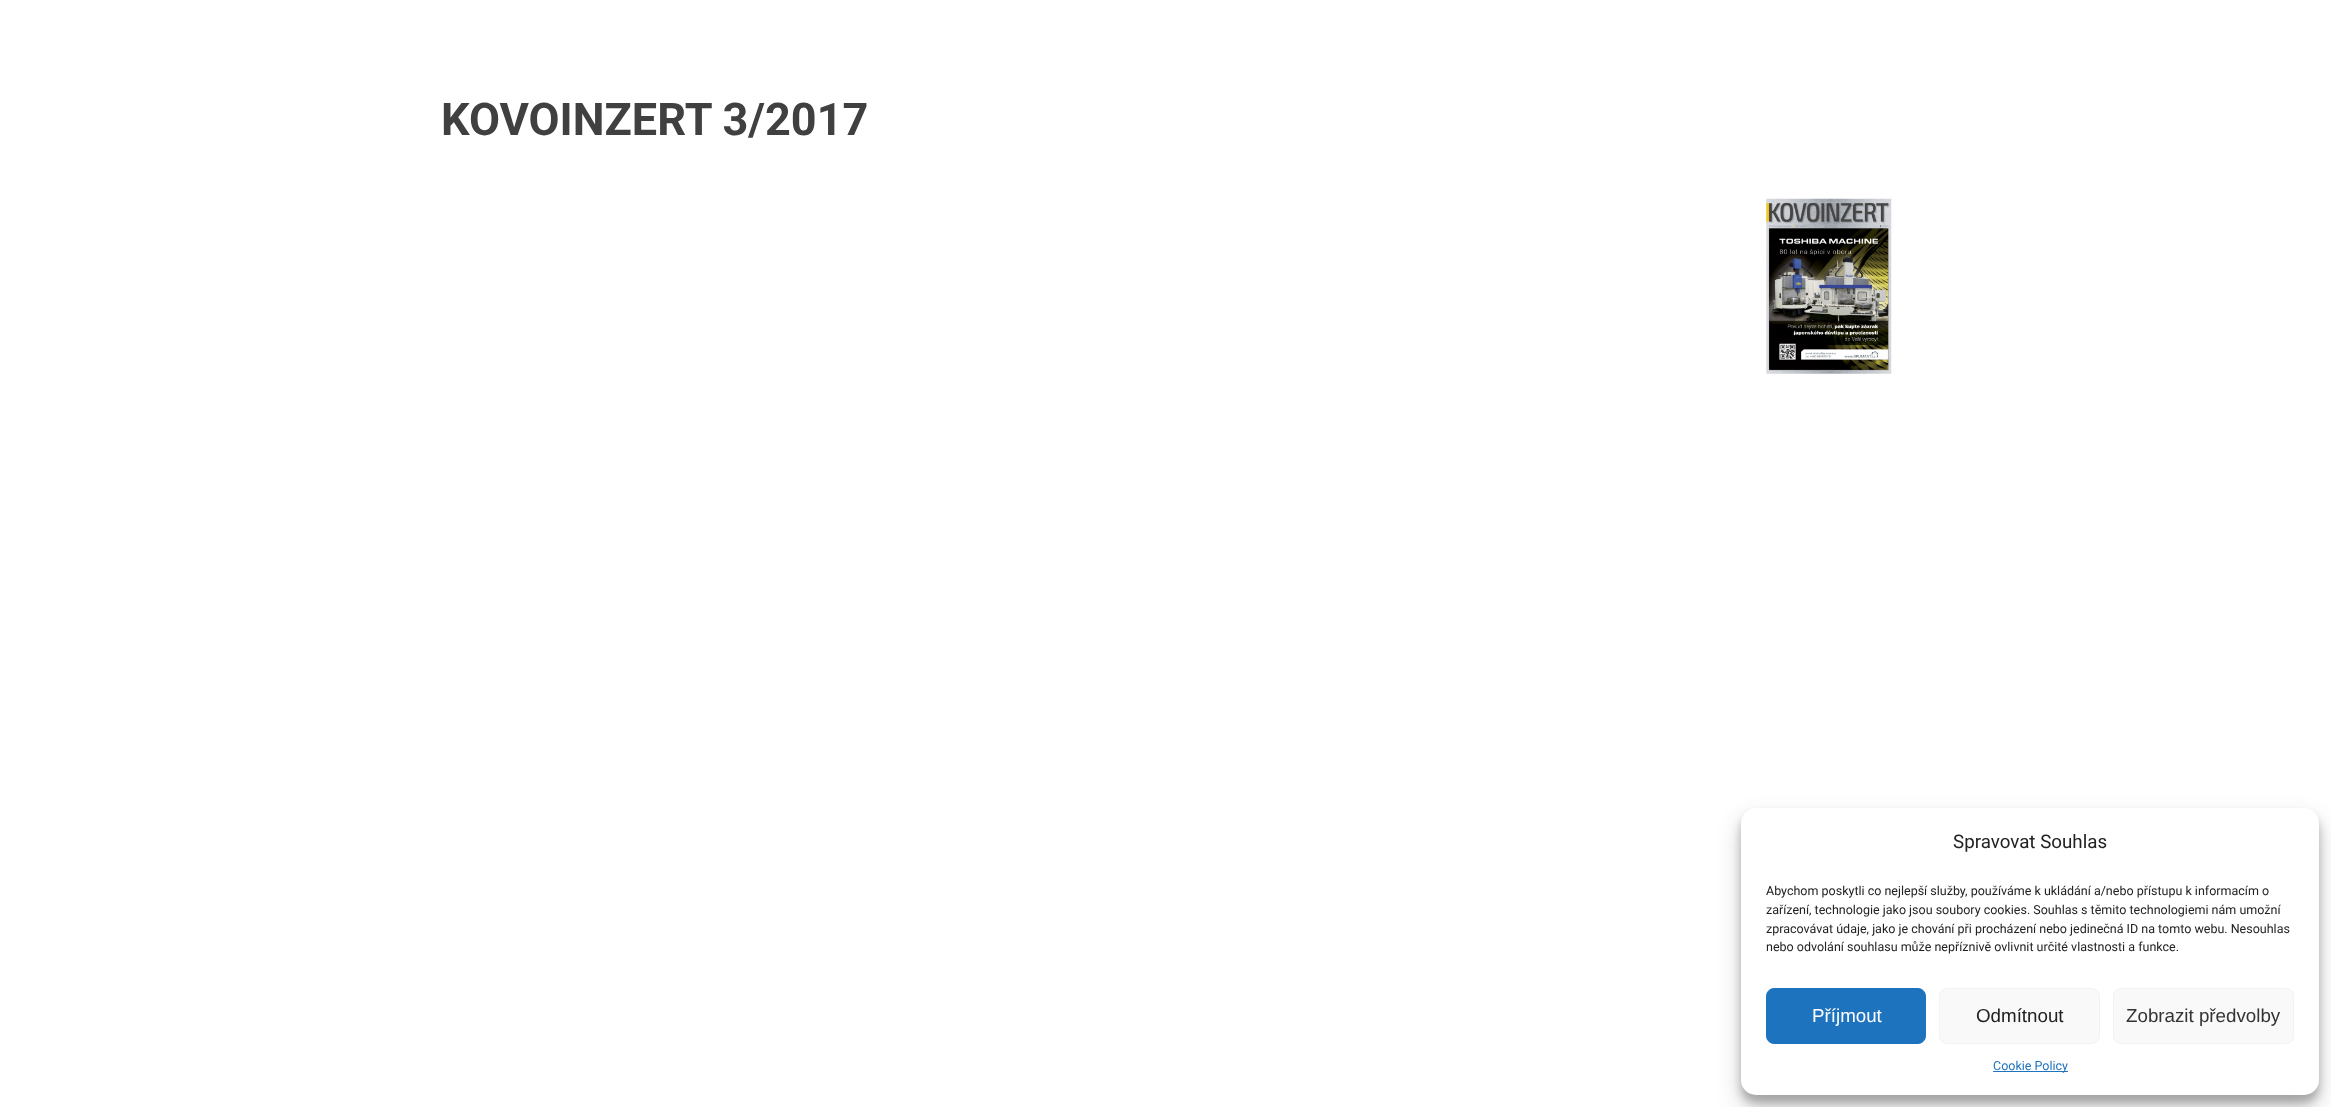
<svg xmlns="http://www.w3.org/2000/svg" width="2331" height="1107">
	<rect width="100%" height="100%" fill="#FFFFFF" />
	<text x="441" y="135" font-family="Roboto" font-size="45" font-weight="700" fill="#404040">KOVOINZERT 3/2017</text>
	<image x="1766" y="198" width="126" height="176" href="assets/img1.png" />
	<rect x="1741" y="815" width="578" height="288" rx="15" fill="#000000" fill-opacity="0.23" filter="blur(4px)" />
	<rect x="1741" y="820" width="578" height="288" rx="15" fill="#000000" fill-opacity="0.19" filter="blur(12.5px)" />
	<rect x="1741" y="808" width="578" height="287" rx="15" fill="#FFFFFF" />
	<text x="1953" y="848" font-family="Roboto" font-size="18.75" fill="#222222">Spravovat Souhlas</text>
	<g font-family="Roboto" font-size="12.5" fill="#222222">
		<text x="1766" y="895">Abychom poskytli co nejlepší služby, používáme k ukládání a/nebo přístupu k informacím o</text>
		<text x="1766" y="914">zařízení, technologie jako jsou soubory cookies. Souhlas s těmito technologiemi nám umožní</text>
		<text x="1766" y="933">zpracovávat údaje, jako je chování při procházení nebo jedinečná ID na tomto webu. Nesouhlas</text>
		<text x="1766" y="951">nebo odvolání souhlasu může nepříznivě ovlivnit určité vlastnosti a funkce.</text>
	</g>
	<rect x="1766.5" y="988.5" width="159" height="55" rx="7.5" fill="#1E73BE" stroke="#1E73BE" />
	<text x="1812" y="1022" font-family="Liberation Sans" font-size="18.75" fill="#FFFFFF">Příjmout</text>
	<rect x="1939.5" y="988.5" width="160" height="55" rx="7.5" fill="#F9F9F9" stroke="#F2F2F2" />
	<text x="1976" y="1022" font-family="Liberation Sans" font-size="18.75" fill="#222222">Odmítnout</text>
	<rect x="2113.5" y="988.5" width="180" height="55" rx="7.5" fill="#F9F9F9" stroke="#F2F2F2" />
	<text x="2126" y="1022" font-family="Liberation Sans" font-size="18.75" fill="#333333">Zobrazit předvolby</text>
	<rect x="1993" y="1071" width="75" height="1" fill="#1E73BE" />
	<text x="1993" y="1070" font-family="Roboto" font-size="12.5" fill="#1E73BE">Cookie Policy</text>
</svg>
